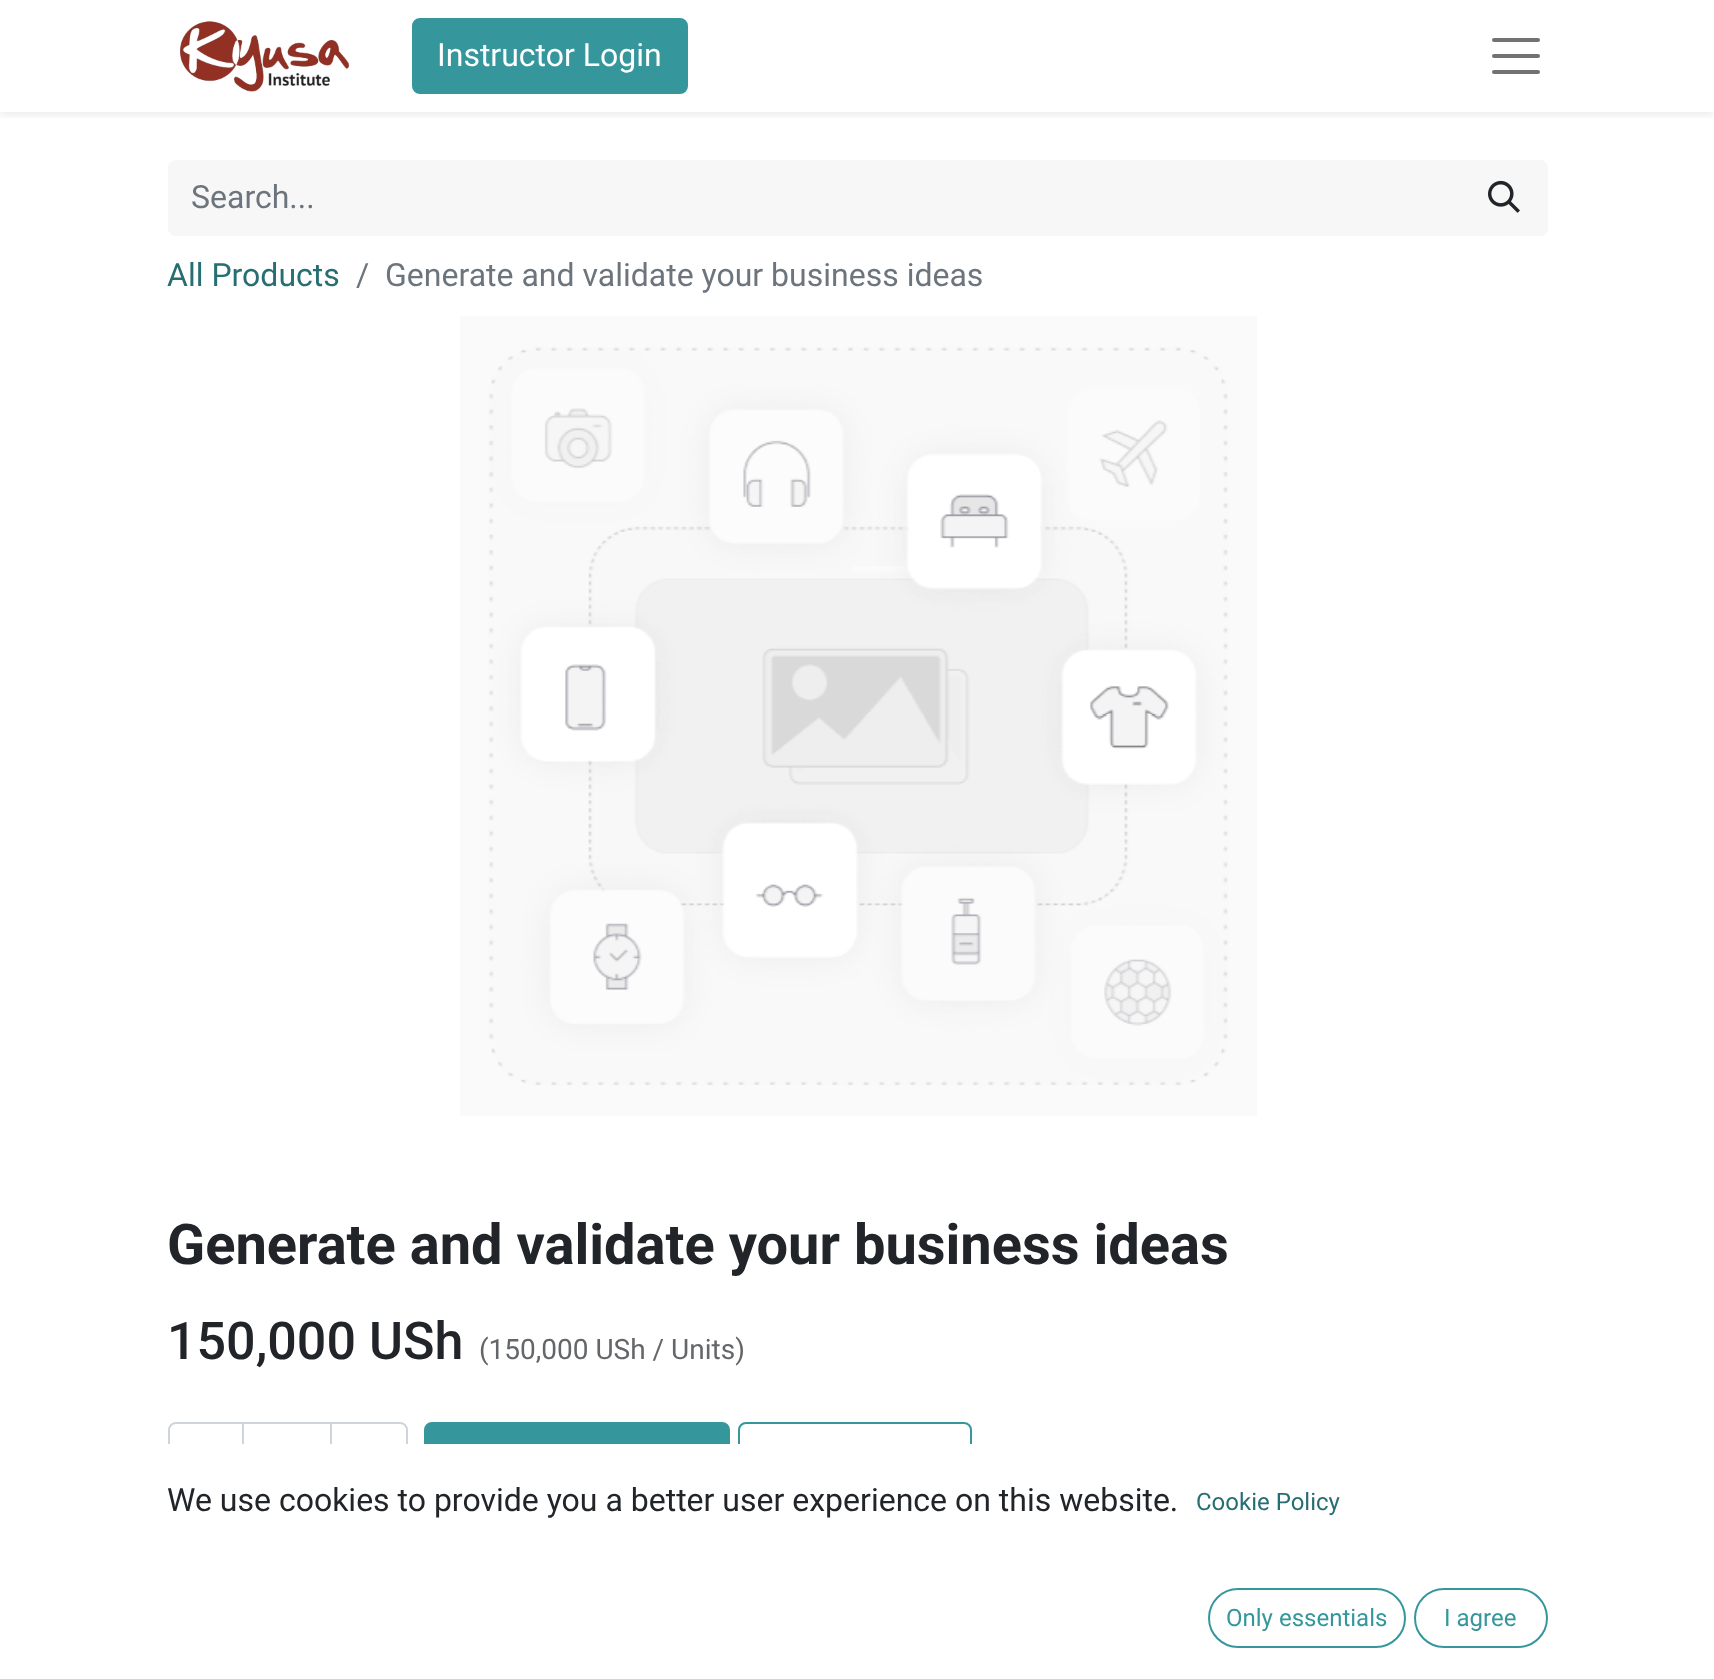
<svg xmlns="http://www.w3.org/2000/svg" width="1714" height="1679">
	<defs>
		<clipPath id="clip1"><rect x="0" y="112" width="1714" height="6" /></clipPath>
	</defs>
	<rect width="100%" height="100%" fill="#FFFFFF" />
	<g clip-path="url(#clip1)">
		<rect x="0" y="4" width="1714" height="112" fill="#000000" fill-opacity="0.07" filter="blur(4px)" />
	</g>
	<image x="180" y="21" width="170" height="71" href="assets/img1.png" />
	<rect x="413" y="19" width="274" height="74" rx="7" fill="#35979C" stroke="#35979C" stroke-width="2" />
	<text x="437" y="66" font-family="Roboto" font-size="32" fill="#FFFFFF">Instructor Login</text>
	<path d="M1494 40H1538M1494 56H1538M1494 72H1538" fill="none" stroke="#737373" stroke-width="4" stroke-linecap="round" />
	<path d="M176 160H1464V236H176C171.5 236 168 232.5 168 228V168C168 163.5 171.5 160 176 160Z" fill="#F7F7F7" />
	<text x="191" y="208" font-family="Roboto" font-size="32" fill="#6C757D">Search...</text>
	<path d="M1462 160H1540C1544.5 160 1548 163.5 1548 168V228C1548 232.5 1544.5 236 1540 236H1462Z" fill="#F7F7F7" />
	<image x="1488" y="180" width="32" height="33" href="assets/img2.png" />
	<text x="167" y="286" font-family="Roboto" font-size="32" fill="#276E72">All Products</text>
	<g font-family="Roboto" font-size="32" fill="#6C757D">
		<text x="356" y="286">/</text>
		<text x="385" y="286">Generate and validate your business ideas</text>
	</g>
	<image x="460" y="316" width="797" height="800" href="assets/img3.png" />
	<text x="167" y="1264" font-family="Roboto" font-size="56" font-weight="700" fill="#212529">Generate and validate your business ideas</text>
	<text x="167" y="1359" font-family="Roboto" font-size="52" font-weight="500" fill="#212529">150,000 USh</text>
	<text x="479" y="1359" font-family="Roboto" font-size="28" fill="#646669">(150,000 USh / Units)</text>
	<rect x="243" y="1423" width="88" height="74" fill="none" stroke="#CED4DA" stroke-width="2" />
	<path d="M176 1423H243V1497H176C172 1497 169 1494 169 1490V1430C169 1426 172 1423 176 1423Z" fill="none" stroke="#CED4DA" stroke-width="2" />
	<path d="M331 1423H400C404 1423 407 1426 407 1430V1490C407 1494 404 1497 400 1497H331Z" fill="none" stroke="#CED4DA" stroke-width="2" />
	<rect x="425" y="1423" width="304" height="74" rx="7" fill="#35979C" stroke="#35979C" stroke-width="2" />
	<rect x="739" y="1423" width="232" height="74" rx="7" fill="none" stroke="#35979C" stroke-width="2" />
	<rect x="168" y="1444" width="804" height="54" fill="#FFFFFF" />
	<text x="167" y="1511" font-family="Roboto" font-size="32" fill="#212529">We use cookies to provide you a better user experience on this website.</text>
	<text x="1196" y="1510" font-family="Roboto" font-size="24" fill="#276E72">Cookie Policy</text>
	<rect x="1209" y="1589" width="196" height="58" rx="29" fill="none" stroke="#35979C" stroke-width="2" />
	<text x="1226" y="1626" font-family="Roboto" font-size="24" fill="#35979C">Only essentials</text>
	<rect x="1415" y="1589" width="132" height="58" rx="29" fill="none" stroke="#35979C" stroke-width="2" />
	<text x="1444" y="1626" font-family="Roboto" font-size="24" fill="#35979C">I agree</text>
</svg>
